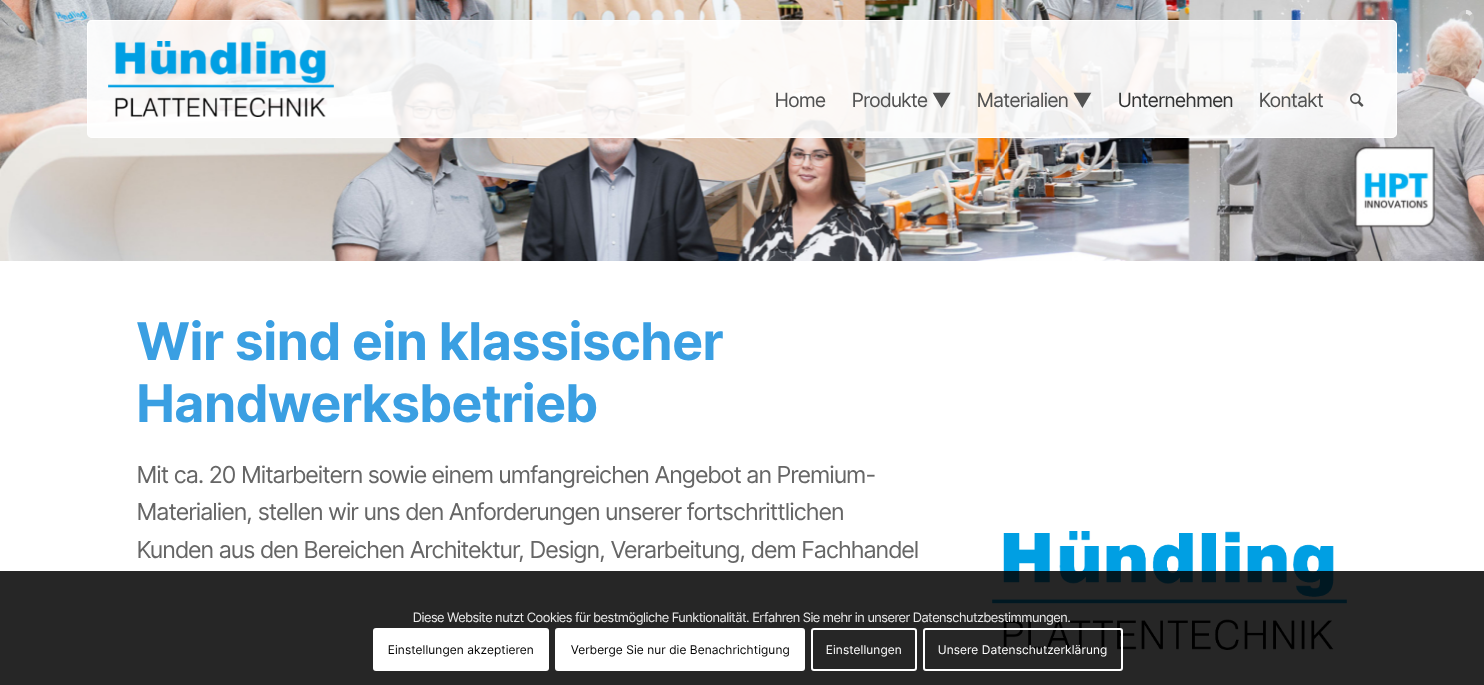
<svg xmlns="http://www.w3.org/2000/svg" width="1484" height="685">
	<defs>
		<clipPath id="clip1"><rect x="1466" y="10" width="8" height="16" /></clipPath>
		<clipPath id="clip2"><path d="M1468 7L1472.5 13.5L1459.5 22.5L1455 16Z" /></clipPath>
	</defs>
	<rect width="100%" height="100%" fill="#FFFFFF" />
	<image x="0" y="0" width="1484" height="261" href="assets/img3.png" />
	<rect x="87" y="20" width="1310" height="118" rx="5" fill="#FFFFFF" fill-opacity="0.9" />
	<rect x="87.5" y="20.5" width="1309" height="117" rx="4.5" fill="none" stroke="#FFFFFF" stroke-opacity="0.9" />
	<image x="108" y="41" width="226" height="76" href="assets/img1.png" />
	<g font-family="Inter Tight" font-size="19.5" fill="#525252">
		<text x="775" y="107">Home</text>
		<text x="852" y="107">Produkte ▼</text>
		<text x="977" y="107">Materialien ▼</text>
	</g>
	<text x="1118" y="107" font-family="Inter Tight" font-size="19.5" fill="#333333">Unternehmen</text>
	<text x="1259" y="107" font-family="Inter Tight" font-size="19.5" fill="#525252">Kontakt</text>
	<image x="1350" y="93" width="14" height="14" href="assets/img2.png" />
	<circle cx="1466" cy="18" r="6" fill="none" stroke="#FFFFFF" stroke-opacity="0.13" stroke-width="4" />
	<g clip-path="url(#clip1)">
		<g clip-path="url(#clip2)">
			<path d="M1471 14.5C1475.5 21 1465.5 28 1461 21.5C1456.5 15 1466.5 8 1471 14.5Z" fill="none" stroke="#E6E6E6" stroke-width="4" />
		</g>
	</g>
	<g font-family="Inter Tight" font-size="52" font-weight="700" letter-spacing="1" fill="#3A9FE2">
		<text x="137" y="360">Wir sind ein klassischer</text>
		<text x="137" y="422">Handwerksbetrieb</text>
	</g>
	<g font-family="Inter Tight" font-size="23.4" fill="#666666">
		<text x="137" y="483">Mit ca. 20 Mitarbeitern sowie einem umfangreichen Angebot an Premium-</text>
		<text x="137" y="520">Materialien, stellen wir uns den Anforderungen unserer fortschrittlichen</text>
		<text x="137" y="558">Kunden aus den Bereichen Architektur, Design, Verarbeitung, dem Fachhandel</text>
	</g>
	<image x="992" y="531" width="355" height="119" href="assets/img4.png" />
	<rect x="0" y="571" width="1484" height="114" fill="#000000" fill-opacity="0.85" />
	<text x="413" y="622" font-family="Inter Tight" font-size="13" fill="#E9E9E9">Diese Website nutzt Cookies für bestmögliche Funktionalität. Erfahren Sie mehr in unserer Datenschutzbestimmungen.</text>
	<rect x="373" y="628" width="176" height="43" rx="3" fill="#FFFFFF" />
	<text x="388" y="654" font-family="Inter Tight" font-size="12" letter-spacing="0.6" fill="#000000">Einstellungen akzeptieren</text>
	<rect x="556" y="629" width="248" height="41" rx="2" fill="#FFFFFF" stroke="#FFFFFF" stroke-width="2" />
	<text x="571" y="654" font-family="Inter Tight" font-size="12" letter-spacing="0.6" fill="#000000">Verberge Sie nur die Benachrichtigung</text>
	<rect x="812" y="629" width="104" height="41" rx="2" fill="none" stroke="#FFFFFF" stroke-width="2" />
	<text x="826" y="654" font-family="Inter Tight" font-size="12" letter-spacing="0.6" fill="#FFFFFF">Einstellungen</text>
	<rect x="924" y="629" width="198" height="41" rx="2" fill="none" stroke="#FFFFFF" stroke-width="2" />
	<text x="938" y="654" font-family="Inter Tight" font-size="12" letter-spacing="0.6" fill="#FFFFFF">Unsere Datenschutzerklärung</text>
</svg>
